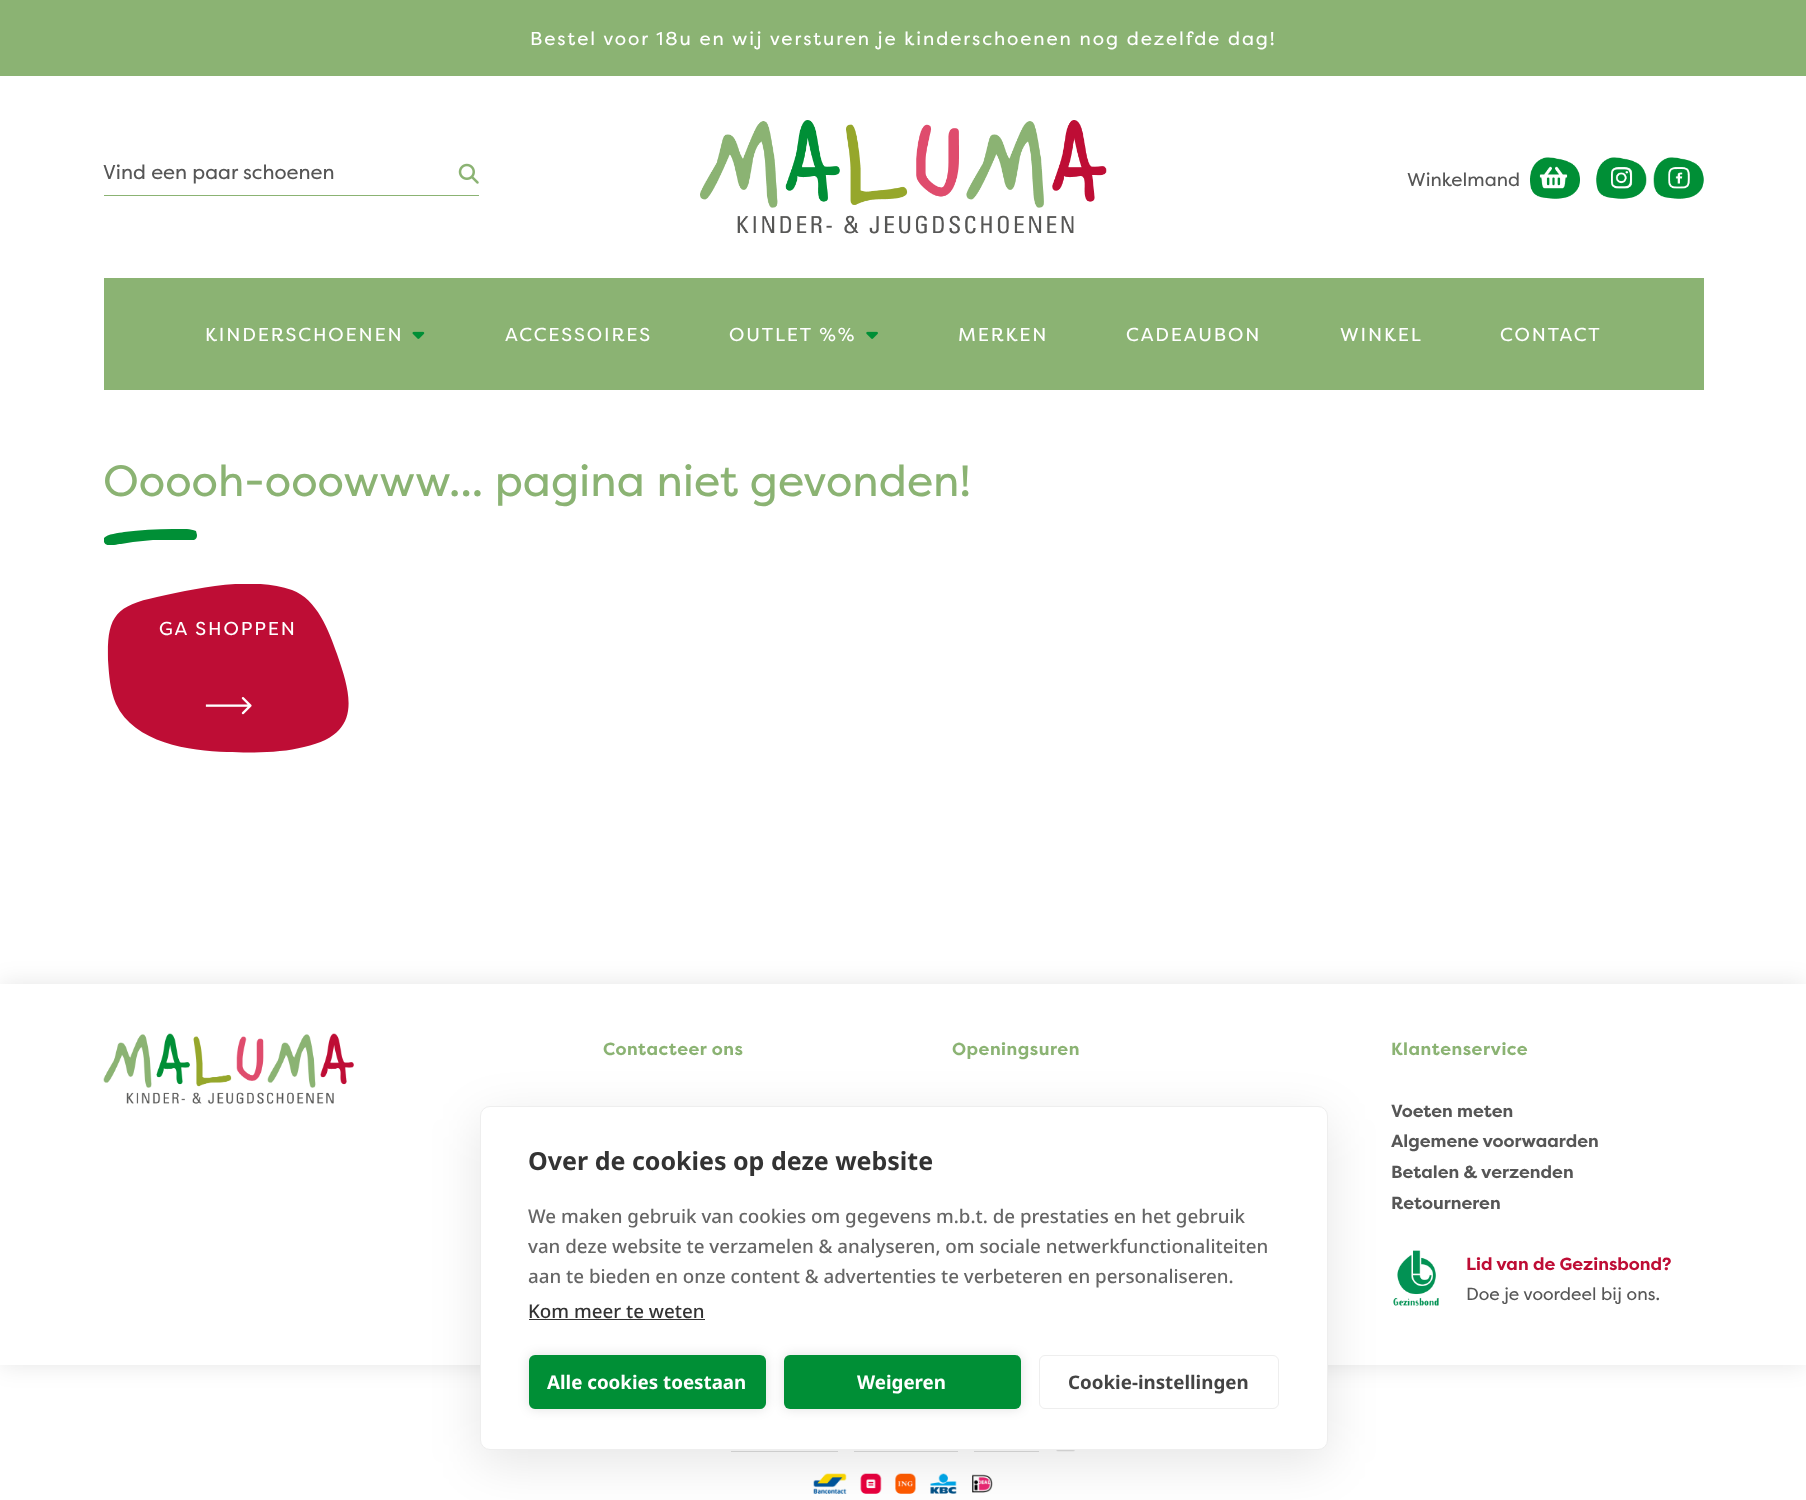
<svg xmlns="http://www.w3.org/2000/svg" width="1806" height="1500">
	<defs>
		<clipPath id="clip1"><rect x="104" y="529" width="94" height="16" /></clipPath>
		<clipPath id="clip2"><rect x="104" y="584" width="250" height="169" /></clipPath>
		<clipPath id="clip3"><path d="M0 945H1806V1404H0ZM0 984H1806V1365H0Z" clip-rule="evenodd" /></clipPath>
	</defs>
	<rect width="100%" height="100%" fill="#FFFFFF" />
	<rect x="0" y="0" width="1806" height="76" fill="#8BB373" />
	<text x="530" y="45" font-family="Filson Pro" font-size="18.75" letter-spacing="1.88" fill="#FFFFFF">Bestel voor 18u en wij versturen je kinderschoenen nog dezelfde dag!</text>
	<rect x="104" y="195" width="375" height="1" fill="#8BB373" />
	<text x="103" y="179" font-family="Filson Pro" font-size="20" fill="#565656">Vind een paar schoenen</text>
	<image x="458" y="163" width="21" height="21" href="assets/img1.png" />
	<image x="700" y="120" width="407" height="114" href="assets/img2.png" />
	<text x="1407" y="186" font-family="Filson Pro" font-size="18.75" fill="#565656">Winkelmand</text>
	<image x="1530" y="157" width="50" height="42" href="assets/img3.png" />
	<image x="1596" y="157" width="51" height="42" href="assets/img4.png" />
	<image x="1653" y="157" width="51" height="42" href="assets/img5.png" />
	<rect x="104" y="278" width="1600" height="112" fill="#8BB373" />
	<text x="205" y="341" font-family="Filson Pro" font-size="18.75" letter-spacing="1.88" fill="#FFFFFF">KINDERSCHOENEN</text>
	<image x="412" y="331" width="13" height="8" href="assets/img6.png" />
	<g font-family="Filson Pro" font-size="18.75" letter-spacing="1.88" fill="#FFFFFF">
		<text x="505" y="341">ACCESSOIRES</text>
		<text x="729" y="341">OUTLET %%</text>
	</g>
	<image x="866" y="331" width="12" height="8" href="assets/img7.png" />
	<g font-family="Filson Pro" font-size="18.75" letter-spacing="1.88" fill="#FFFFFF">
		<text x="958" y="341">MERKEN</text>
		<text x="1126" y="341">CADEAUBON</text>
		<text x="1340" y="341">WINKEL</text>
		<text x="1500" y="341">CONTACT</text>
	</g>
	<text x="103" y="496" font-family="Filson Pro" font-size="43.75" fill="#8BB373">Ooooh-ooowww... pagina niet gevonden!</text>
	<g clip-path="url(#clip1)">
		<path d="M197 535L196 531C189 528 180 529 173 529C156 529 140 530 124 532C119 533 107 534 104 538C103 539 104 541 104 542C106 548 117 544 121 544L133 542L153 540H194C196 539 197 538 197 535Z" fill="#008F36" />
	</g>
	<g clip-path="url(#clip2)">
		<path d="M157 597C114 606 107 618 108 660C109 675 110 690 116 704C134 743 190 751 227 752C251 753 281 753 304 747C362 734 352 697 337 654C329 631 317 599 292 590C251 576 198 588 157 597Z" fill="#BE0D35" />
	</g>
	<text x="159" y="635" font-family="Filson Pro" font-size="18.75" letter-spacing="1.88" fill="#FFFFFF">GA SHOPPEN</text>
	<image x="205" y="697" width="47" height="18" href="assets/img8.png" />
	<g clip-path="url(#clip3)">
		<rect x="0" y="984" width="1806" height="381" fill="#000000" fill-opacity="0.1" filter="blur(12.5px)" />
	</g>
	<image x="103" y="1033" width="251" height="71" href="assets/img9.png" />
	<g font-family="Filson Pro" font-size="17.5" font-weight="700" letter-spacing="0.5" fill="#8BB373">
		<text x="603" y="1055">Contacteer ons</text>
		<text x="952" y="1055">Openingsuren</text>
		<text x="1391" y="1055">Klantenservice</text>
	</g>
	<g font-family="Filson Pro" font-size="17.5" font-weight="700" fill="#565656">
		<text x="1391" y="1117">Voeten meten</text>
		<text x="1391" y="1147">Algemene voorwaarden</text>
		<text x="1391" y="1178">Betalen &amp; verzenden</text>
		<text x="1391" y="1209">Retourneren</text>
	</g>
	<image x="1393" y="1250" width="46" height="56" href="assets/img10.png" />
	<text x="1466" y="1270" font-family="Filson Pro" font-size="17.5" font-weight="700" fill="#BE0D35">Lid van de Gezinsbond?</text>
	<text x="1466" y="1300" font-family="Filson Pro" font-size="17.5" fill="#565656">Doe je voordeel bij ons.</text>
	<rect x="731" y="1451" width="107" height="1" fill="#DDDDDD" />
	<rect x="854" y="1451" width="104" height="1" fill="#DDDDDD" />
	<rect x="974" y="1451" width="65" height="1" fill="#DDDDDD" />
	<image x="1056" y="1450" width="19" height="2" href="assets/img11.png" />
	<image x="813" y="1473" width="180" height="21" href="assets/img12.png" />
	<rect x="480" y="1119" width="848" height="344" rx="10" fill="#000000" fill-opacity="0.1" filter="blur(25px)" />
	<rect x="480.5" y="1106.5" width="847" height="343" rx="9.5" fill="#FFFFFF" stroke="#EEEEEE" />
	<text x="528" y="1170" font-family="Noto Sans" font-size="25" font-weight="700" fill="#333333">Over de cookies op deze website</text>
	<g font-family="Noto Sans" font-size="18.75" font-weight="500" fill="#666666">
		<text x="528" y="1223">We maken gebruik van cookies om gegevens m.b.t. de prestaties en het gebruik</text>
		<text x="528" y="1253">van deze website te verzamelen &amp; analyseren, om sociale netwerkfunctionaliteiten</text>
		<text x="528" y="1283">aan te bieden en onze content &amp; advertenties te verbeteren en personaliseren.</text>
	</g>
	<text x="528" y="1318" font-family="Noto Sans" font-size="18.75" font-weight="500" fill="#333333">Kom meer te weten</text>
	<rect x="529" y="1319" width="176" height="1" fill="#333333" />
	<rect x="529" y="1355" width="237" height="54" rx="6" fill="#000000" fill-opacity="0.12" filter="blur(6px)" />
	<rect x="529" y="1355" width="237" height="54" rx="6" fill="#008F36" />
	<text x="547" y="1389" font-family="Noto Sans" font-size="18.75" font-weight="700" fill="#FFFFFF">Alle cookies toestaan</text>
	<rect x="784" y="1355" width="237" height="54" rx="6" fill="#000000" fill-opacity="0.12" filter="blur(6px)" />
	<rect x="784" y="1355" width="237" height="54" rx="6" fill="#008F36" />
	<text x="857" y="1389" font-family="Noto Sans" font-size="18.75" font-weight="700" fill="#FFFFFF">Weigeren</text>
	<rect x="1039.5" y="1355.5" width="239" height="53" rx="5.5" fill="none" stroke="#EEEEEE" />
	<text x="1068" y="1389" font-family="Noto Sans" font-size="18.75" font-weight="700" fill="#444444">Cookie-instellingen</text>
</svg>
